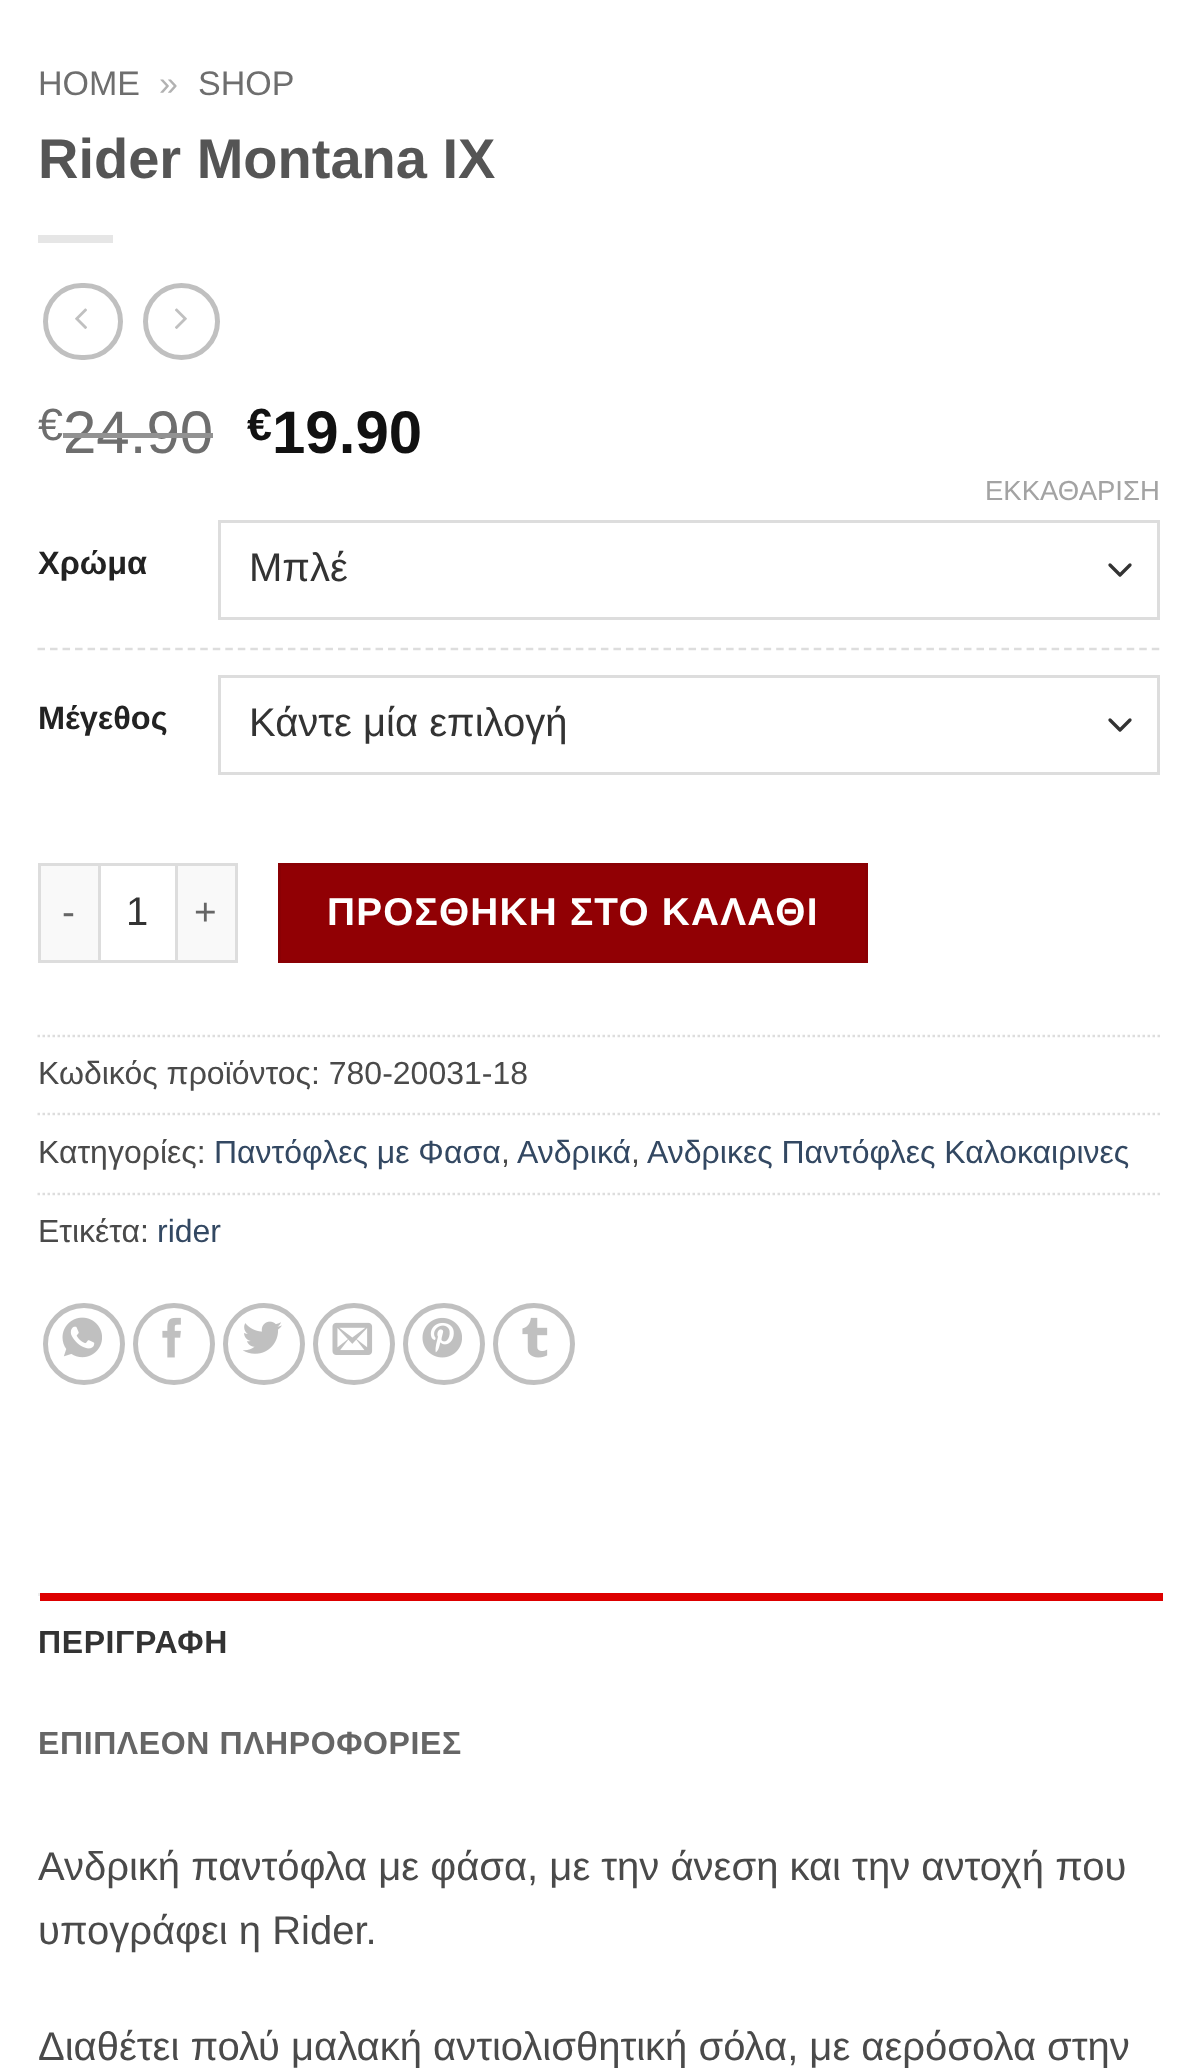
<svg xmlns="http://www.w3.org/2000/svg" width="1197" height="2068">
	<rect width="100%" height="100%" fill="#FFFFFF" />
	<text x="38" y="95" font-family="Liberation Sans" font-size="34" fill="#6E6E6E">HOME</text>
	<text x="159" y="95" font-family="Liberation Sans" font-size="34" fill="#B2B2B2">»</text>
	<text x="198" y="95" font-family="Liberation Sans" font-size="34" fill="#6E6E6E">SHOP</text>
	<text x="38" y="178" font-family="Liberation Sans" font-size="56" font-weight="700" fill="#555555">Rider Montana IX</text>
	<rect x="38" y="235" width="75" height="8" fill="#E6E6E6" />
	<rect x="45.5" y="285.5" width="75" height="72" rx="36" fill="none" stroke="#C0C0C0" stroke-width="5" />
	<image x="75" y="308" width="12" height="21" href="assets/img1.png" />
	<circle cx="181.5" cy="321.5" r="36" fill="none" stroke="#C0C0C0" stroke-width="5" />
	<image x="175" y="308" width="12" height="21" href="assets/img2.png" />
	<text x="38" y="440" font-family="Liberation Sans" font-size="45" fill="#6E6E6E">€</text>
	<text x="63" y="453" font-family="Liberation Sans" font-size="60" fill="#6E6E6E">24.90</text>
	<rect x="63" y="433" width="150" height="5" fill="#929292" />
	<text x="247" y="440" font-family="Liberation Sans" font-size="45" font-weight="700" fill="#111111">€</text>
	<text x="272" y="453" font-family="Liberation Sans" font-size="60" font-weight="700" fill="#111111">19.90</text>
	<path d="M37.5 649H1160" fill="none" stroke="#DDDDDD" stroke-width="2.5" stroke-dasharray="7.5 5.02" />
	<text x="38" y="729" font-family="Liberation Sans" font-size="32.5" font-weight="700" fill="#222222">Μέγεθος</text>
	<text x="985" y="500" font-family="Liberation Sans" font-size="27.5" fill="#A3A3A3">ΕΚΚΑΘΑΡΙΣΗ</text>
	<path d="M1110 720L1120 730L1130 720" fill="none" stroke="#333333" stroke-width="3.3" stroke-linecap="round" stroke-linejoin="round" />
	<rect x="219.5" y="676.5" width="939" height="97" fill="none" stroke="#DDDDDD" stroke-width="3" />
	<text x="249" y="736" font-family="Liberation Sans" font-size="40" fill="#333333">Κάντε μία επιλογή</text>
	<text x="38" y="574" font-family="Liberation Sans" font-size="32.5" font-weight="700" fill="#222222">Χρώμα</text>
	<path d="M1110 565L1120 575L1130 565" fill="none" stroke="#333333" stroke-width="3.3" stroke-linecap="round" stroke-linejoin="round" />
	<rect x="219.5" y="521.5" width="939" height="97" fill="none" stroke="#DDDDDD" stroke-width="3" />
	<text x="249" y="581" font-family="Liberation Sans" font-size="40" fill="#333333">Μπλέ</text>
	<rect x="41" y="866" width="57" height="94" fill="#F9F9F9" />
	<rect x="38" y="863" width="60" height="3" fill="#DDDDDD" />
	<rect x="38" y="960" width="60" height="3" fill="#DDDDDD" />
	<rect x="38" y="863" width="3" height="100" fill="#DDDDDD" />
	<text x="62" y="925" font-family="Liberation Sans" font-size="38.75" letter-spacing="1.2" fill="#666666">-</text>
	<rect x="99.5" y="864.5" width="77" height="97" fill="none" stroke="#DDDDDD" stroke-width="3" />
	<text x="126" y="925" font-family="Liberation Sans" font-size="40" fill="#333333">1</text>
	<rect x="178" y="866" width="57" height="94" fill="#F9F9F9" />
	<rect x="178" y="863" width="60" height="3" fill="#DDDDDD" />
	<rect x="235" y="863" width="3" height="100" fill="#DDDDDD" />
	<rect x="178" y="960" width="60" height="3" fill="#DDDDDD" />
	<text x="194" y="925" font-family="Liberation Sans" font-size="38.75" letter-spacing="1.2" fill="#666666">+</text>
	<rect x="279.5" y="864.5" width="587" height="97" fill="#910004" stroke="#8A0004" stroke-width="3" />
	<text x="327" y="925" font-family="Liberation Sans" font-size="38.75" font-weight="700" letter-spacing="1.2" fill="#FFFFFF">ΠΡΟΣΘΗΚΗ ΣΤΟ ΚΑΛΑΘΙ</text>
	<path d="M37.5 1036H1160" fill="none" stroke="#DDDDDD" stroke-width="2.5" stroke-dasharray="2.5 2.5" />
	<text x="38" y="1084" font-family="Liberation Sans" font-size="32" fill="#4A4A4A">Κωδικός προϊόντος: 780-20031-18</text>
	<path d="M37.5 1114H1160" fill="none" stroke="#DDDDDD" stroke-width="2.5" stroke-dasharray="2.5 2.5" />
	<text x="38" y="1163" font-family="Liberation Sans" font-size="32" fill="#4A4A4A">Κατηγορίες:</text>
	<text x="214" y="1163" font-family="Liberation Sans" font-size="32" fill="#334862">Παντόφλες με Φασα</text>
	<text x="501" y="1163" font-family="Liberation Sans" font-size="32" fill="#4A4A4A">,</text>
	<text x="517" y="1163" font-family="Liberation Sans" font-size="32" fill="#334862">Ανδρικά</text>
	<text x="631" y="1163" font-family="Liberation Sans" font-size="32" fill="#4A4A4A">,</text>
	<text x="647" y="1163" font-family="Liberation Sans" font-size="32" fill="#334862">Ανδρικες Παντόφλες Καλοκαιρινες</text>
	<path d="M37.5 1194H1160" fill="none" stroke="#DDDDDD" stroke-width="2.5" stroke-dasharray="2.5 2.5" />
	<text x="38" y="1242" font-family="Liberation Sans" font-size="32" fill="#4A4A4A">Ετικέτα:</text>
	<text x="157" y="1242" font-family="Liberation Sans" font-size="32" fill="#334862">rider</text>
	<circle cx="84" cy="1344" r="38.5" fill="none" stroke="#C0C0C0" stroke-width="5" />
	<image x="62" y="1317" width="40" height="41" href="assets/img3.png" />
	<circle cx="174" cy="1344" r="38.5" fill="none" stroke="#C0C0C0" stroke-width="5" />
	<image x="162" y="1317" width="19" height="41" href="assets/img4.png" />
	<circle cx="264" cy="1344" r="38.5" fill="none" stroke="#C0C0C0" stroke-width="5" />
	<image x="243" y="1321" width="39" height="33" href="assets/img5.png" />
	<circle cx="354" cy="1344" r="38.5" fill="none" stroke="#C0C0C0" stroke-width="5" />
	<image x="332" y="1322" width="41" height="33" href="assets/img6.png" />
	<circle cx="444" cy="1344" r="38.5" fill="none" stroke="#C0C0C0" stroke-width="5" />
	<image x="422" y="1317" width="40" height="41" href="assets/img7.png" />
	<circle cx="534" cy="1344" r="38.5" fill="none" stroke="#C0C0C0" stroke-width="5" />
	<image x="522" y="1317" width="26" height="41" href="assets/img8.png" />
	<rect x="38" y="1593" width="2" height="3" fill="#ECECEC" />
	<rect x="40" y="1593" width="1123" height="8" fill="#DD0000" />
	<text x="38" y="1653" font-family="Liberation Sans" font-size="32" font-weight="700" letter-spacing="0.6" fill="#333333">ΠΕΡΙΓΡΑΦΗ</text>
	<text x="38" y="1754" font-family="Liberation Sans" font-size="32" font-weight="700" letter-spacing="0.6" fill="#666666">ΕΠΙΠΛΕΟΝ ΠΛΗΡΟΦΟΡΙΕΣ</text>
	<g font-family="Liberation Sans" font-size="40" fill="#4A4A4A">
		<text x="38" y="1880">Ανδρική παντόφλα με φάσα, με την άνεση και την αντοχή που</text>
		<text x="38" y="1944">υπογράφει η Rider.</text>
		<text x="38" y="2060">Διαθέτει πολύ μαλακή αντιολισθητική σόλα, με αερόσολα στην</text>
	</g>
</svg>
